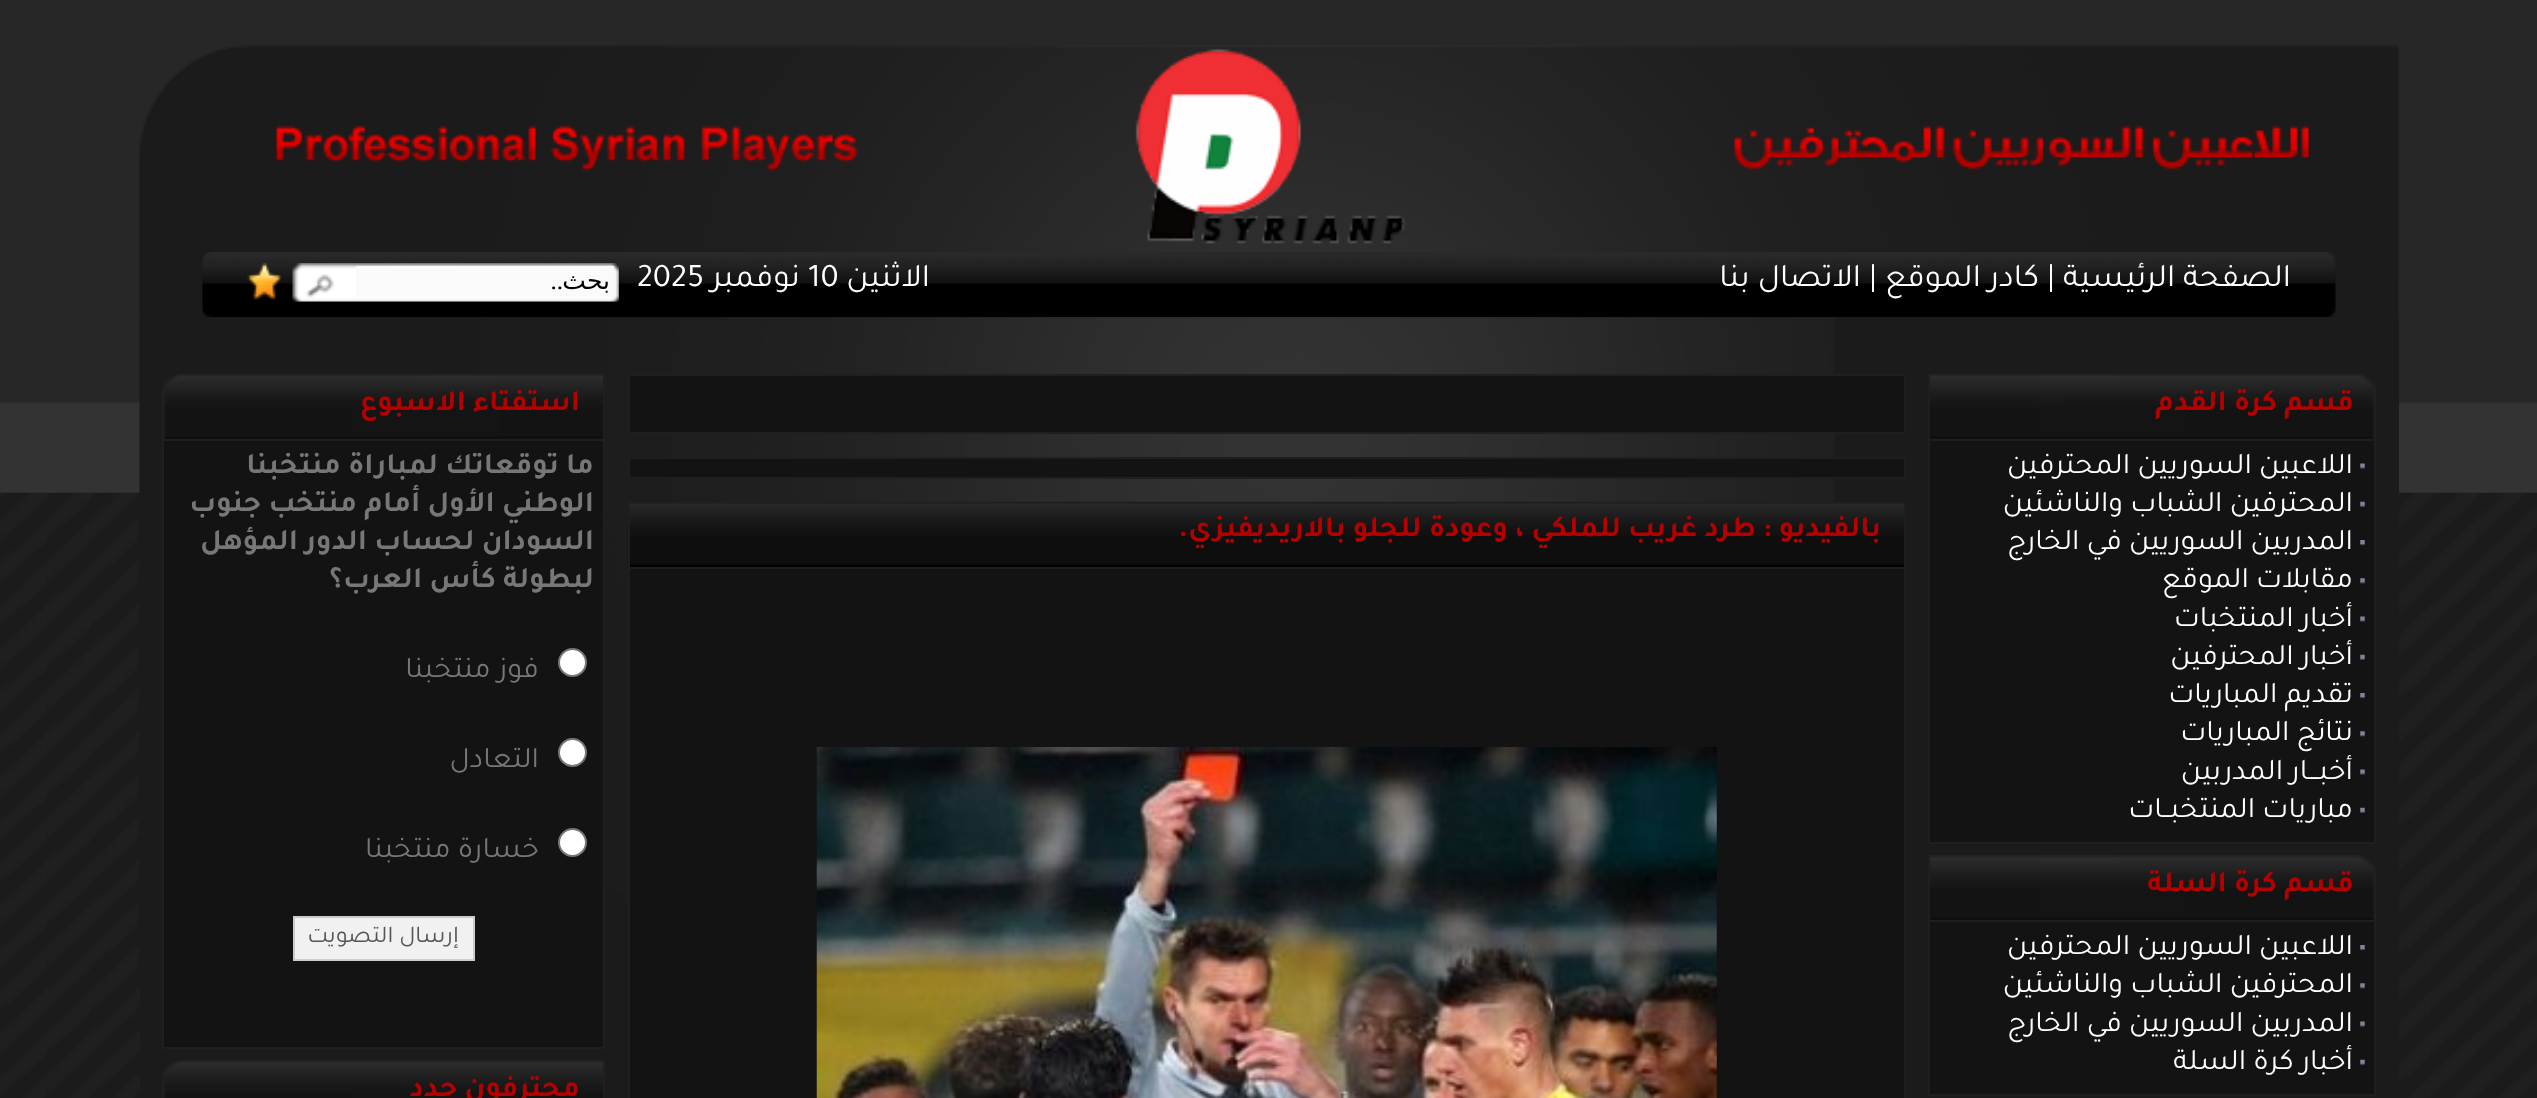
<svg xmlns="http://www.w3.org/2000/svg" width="2537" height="1098">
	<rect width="100%" height="100%" fill="#FFFFFF" />
	<image x="0" y="492" width="2537" height="606" href="assets/img1.png" />
	<image x="0" y="0" width="2537" height="493" href="assets/img2.png" />
	<image x="139" y="45" width="2260" height="272" href="assets/img3.png" />
	<image x="1734" y="125" width="575" height="45" href="assets/img4.png" />
	<image x="1135" y="49" width="271" height="195" href="assets/img5.png" />
	<image x="276" y="125" width="582" height="47" href="assets/img6.png" />
	<image x="202" y="252" width="2134" height="65" href="assets/img7.png" />
	<text x="2291" y="286" font-family="Tajawal" font-size="33" direction="rtl" fill="#FFFFFF">الصفحة الرئيسية</text>
	<text x="2047" y="286" font-family="Tajawal" font-size="33" fill="#FFFFFF">|</text>
	<text x="2039" y="286" font-family="Tajawal" font-size="33" direction="rtl" fill="#FFFFFF">كادر الموقع</text>
	<text x="1869" y="286" font-family="Tajawal" font-size="33" fill="#FFFFFF">|</text>
	<g font-family="Tajawal" font-size="33" direction="rtl" fill="#FFFFFF">
		<text x="1861" y="286">الاتصال بنا</text>
		<text x="930" y="286">الاثنين</text>
	</g>
	<text x="808" y="286" font-family="Tajawal" font-size="33" fill="#FFFFFF">10</text>
	<text x="800" y="286" font-family="Tajawal" font-size="33" direction="rtl" fill="#FFFFFF">نوفمبر</text>
	<text x="637" y="286" font-family="Tajawal" font-size="33" fill="#FFFFFF">2025</text>
	<image x="292" y="263" width="327" height="39" href="assets/img8.png" />
	<rect x="356" y="266" width="258" height="31" fill="#FAFAFA" />
	<text x="610" y="289" font-family="DejaVu Sans" font-size="25" direction="rtl" fill="#000000">بحث</text>
	<text x="563" y="289" font-family="Liberation Serif" font-size="25" direction="rtl" fill="#000000">..</text>
	<image x="247" y="263" width="35" height="37" href="assets/img9.png" />
	<rect x="140" y="317" width="2259" height="781" fill="#1B1B1B" />
	<image x="139" y="317" width="1696" height="652" href="assets/img10.png" />
	<image x="1930" y="374" width="446" height="65" href="assets/img11.png" />
	<rect x="1928" y="374" width="2" height="65" fill="#1F1F1F" />
	<text x="2354" y="410" font-family="Tajawal" font-size="30" font-weight="700" direction="rtl" fill="#B50000">قسم كرة القدم</text>
	<rect x="1929" y="440" width="446" height="403" fill="#131313" stroke="#1F1F1F" stroke-width="2" />
	<image x="2360" y="463" width="5" height="6" href="assets/img12.png" />
	<text x="2353" y="473" font-family="Tajawal" font-size="30" direction="rtl" fill="#FFFFFF">اللاعبين السوريين المحترفين</text>
	<image x="2360" y="501" width="5" height="6" href="assets/img13.png" />
	<text x="2353" y="511" font-family="Tajawal" font-size="30" direction="rtl" fill="#FFFFFF">المحترفين الشباب والناشئين</text>
	<image x="2360" y="540" width="5" height="6" href="assets/img14.png" />
	<text x="2353" y="549" font-family="Tajawal" font-size="30" direction="rtl" fill="#FFFFFF">المدربين السوريين في الخارج</text>
	<image x="2360" y="578" width="5" height="6" href="assets/img15.png" />
	<text x="2353" y="587" font-family="Tajawal" font-size="30" direction="rtl" fill="#FFFFFF">مقابلات الموقع</text>
	<image x="2360" y="616" width="5" height="6" href="assets/img12.png" />
	<text x="2353" y="626" font-family="Tajawal" font-size="30" direction="rtl" fill="#FFFFFF">أخبار المنتخبات</text>
	<image x="2360" y="654" width="5" height="6" href="assets/img13.png" />
	<text x="2353" y="664" font-family="Tajawal" font-size="30" direction="rtl" fill="#FFFFFF">أخبار المحترفين</text>
	<image x="2360" y="693" width="5" height="6" href="assets/img14.png" />
	<text x="2353" y="702" font-family="Tajawal" font-size="30" direction="rtl" fill="#FFFFFF">تقديم المباريات</text>
	<image x="2360" y="731" width="5" height="6" href="assets/img15.png" />
	<text x="2353" y="740" font-family="Tajawal" font-size="30" direction="rtl" fill="#FFFFFF">نتائج المباريات</text>
	<image x="2360" y="769" width="5" height="6" href="assets/img12.png" />
	<text x="2353" y="779" font-family="Tajawal" font-size="30" direction="rtl" fill="#FFFFFF">أخبـــار المدربين</text>
	<image x="2360" y="807" width="5" height="6" href="assets/img13.png" />
	<text x="2353" y="817" font-family="Tajawal" font-size="30" direction="rtl" fill="#FFFFFF">مباريات المنتخبــات</text>
	<image x="1930" y="855" width="446" height="65" href="assets/img16.png" />
	<rect x="1928" y="855" width="2" height="65" fill="#1F1F1F" />
	<text x="2354" y="891" font-family="Tajawal" font-size="30" font-weight="700" direction="rtl" fill="#B50000">قسم كرة السلة</text>
	<rect x="1929" y="921" width="446" height="174" fill="#131313" stroke="#1F1F1F" stroke-width="2" />
	<image x="2360" y="945" width="5" height="6" href="assets/img14.png" />
	<text x="2353" y="954" font-family="Tajawal" font-size="30" direction="rtl" fill="#FFFFFF">اللاعبين السوريين المحترفين</text>
	<image x="2360" y="983" width="5" height="6" href="assets/img15.png" />
	<text x="2353" y="992" font-family="Tajawal" font-size="30" direction="rtl" fill="#FFFFFF">المحترفين الشباب والناشئين</text>
	<image x="2360" y="1021" width="5" height="6" href="assets/img12.png" />
	<text x="2353" y="1031" font-family="Tajawal" font-size="30" direction="rtl" fill="#FFFFFF">المدربين السوريين في الخارج</text>
	<image x="2360" y="1059" width="5" height="6" href="assets/img13.png" />
	<text x="2353" y="1069" font-family="Tajawal" font-size="30" direction="rtl" fill="#FFFFFF">أخبار كرة السلة</text>
	<rect x="629" y="375" width="1276" height="58" fill="#131313" stroke="#1F1F1F" stroke-width="2" />
	<rect x="629" y="458" width="1276" height="20" fill="#131313" stroke="#1F1F1F" stroke-width="2" />
	<image x="627" y="501" width="1279" height="66" href="assets/img17.png" />
	<rect x="1904" y="502" width="2" height="65" fill="#1F1F1F" />
	<rect x="628" y="502" width="2" height="65" fill="#1F1F1F" />
	<text x="1881" y="536" font-family="Tajawal" font-size="30" font-weight="700" direction="rtl" fill="#B50000">بالفيديو : طرد غريب للملكي ، وعودة للجلو بالاريديفيزي.</text>
	<rect x="629" y="568" width="1276" height="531" fill="#131313" stroke="#1F1F1F" stroke-width="2" />
	<image x="816" y="747" width="901" height="351" href="assets/img18.png" />
	<image x="162" y="374" width="444" height="65" href="assets/img19.png" />
	<rect x="603" y="374" width="2" height="65" fill="#1F1F1F" />
	<text x="580" y="410" font-family="Tajawal" font-size="30" font-weight="700" direction="rtl" fill="#B50000">استفتاء الاسبوع</text>
	<rect x="163" y="440" width="441" height="608" fill="#131313" stroke="#1F1F1F" stroke-width="2" />
	<g font-family="Tajawal" font-size="30" font-weight="700" direction="rtl" fill="#777777">
		<text x="594" y="473">ما توقعاتك لمباراة منتخبنا</text>
		<text x="594" y="511">الوطني الأول أمام منتخب جنوب</text>
		<text x="594" y="549">السودان لحساب الدور المؤهل</text>
		<text x="594" y="587">لبطولة كأس العرب؟</text>
	</g>
	<circle cx="572.5" cy="662.5" r="13.5" fill="#FFFFFF" stroke="#767676" stroke-width="2" />
	<text x="539" y="677" font-family="Tajawal" font-size="30" direction="rtl" fill="#777777">فوز منتخبنا</text>
	<circle cx="572.5" cy="752.5" r="13.5" fill="#FFFFFF" stroke="#767676" stroke-width="2" />
	<text x="539" y="767" font-family="Tajawal" font-size="30" direction="rtl" fill="#777777">التعادل</text>
	<circle cx="572.5" cy="842.5" r="13.5" fill="#FFFFFF" stroke="#767676" stroke-width="2" />
	<text x="539" y="857" font-family="Tajawal" font-size="30" direction="rtl" fill="#777777">خسارة منتخبنا</text>
	<rect x="294" y="917" width="180" height="43" fill="#F1F1F1" stroke="#CCCCCC" stroke-width="2" />
	<text x="459" y="942" font-family="Tajawal" font-size="24" direction="rtl" fill="#555555">إرسال التصويت</text>
	<image x="162" y="1060" width="444" height="38" href="assets/img20.png" />
	<rect x="603" y="1060" width="2" height="38" fill="#1F1F1F" />
	<text x="580" y="1096" font-family="Tajawal" font-size="30" font-weight="700" direction="rtl" fill="#B50000">محترفون جدد</text>
</svg>
